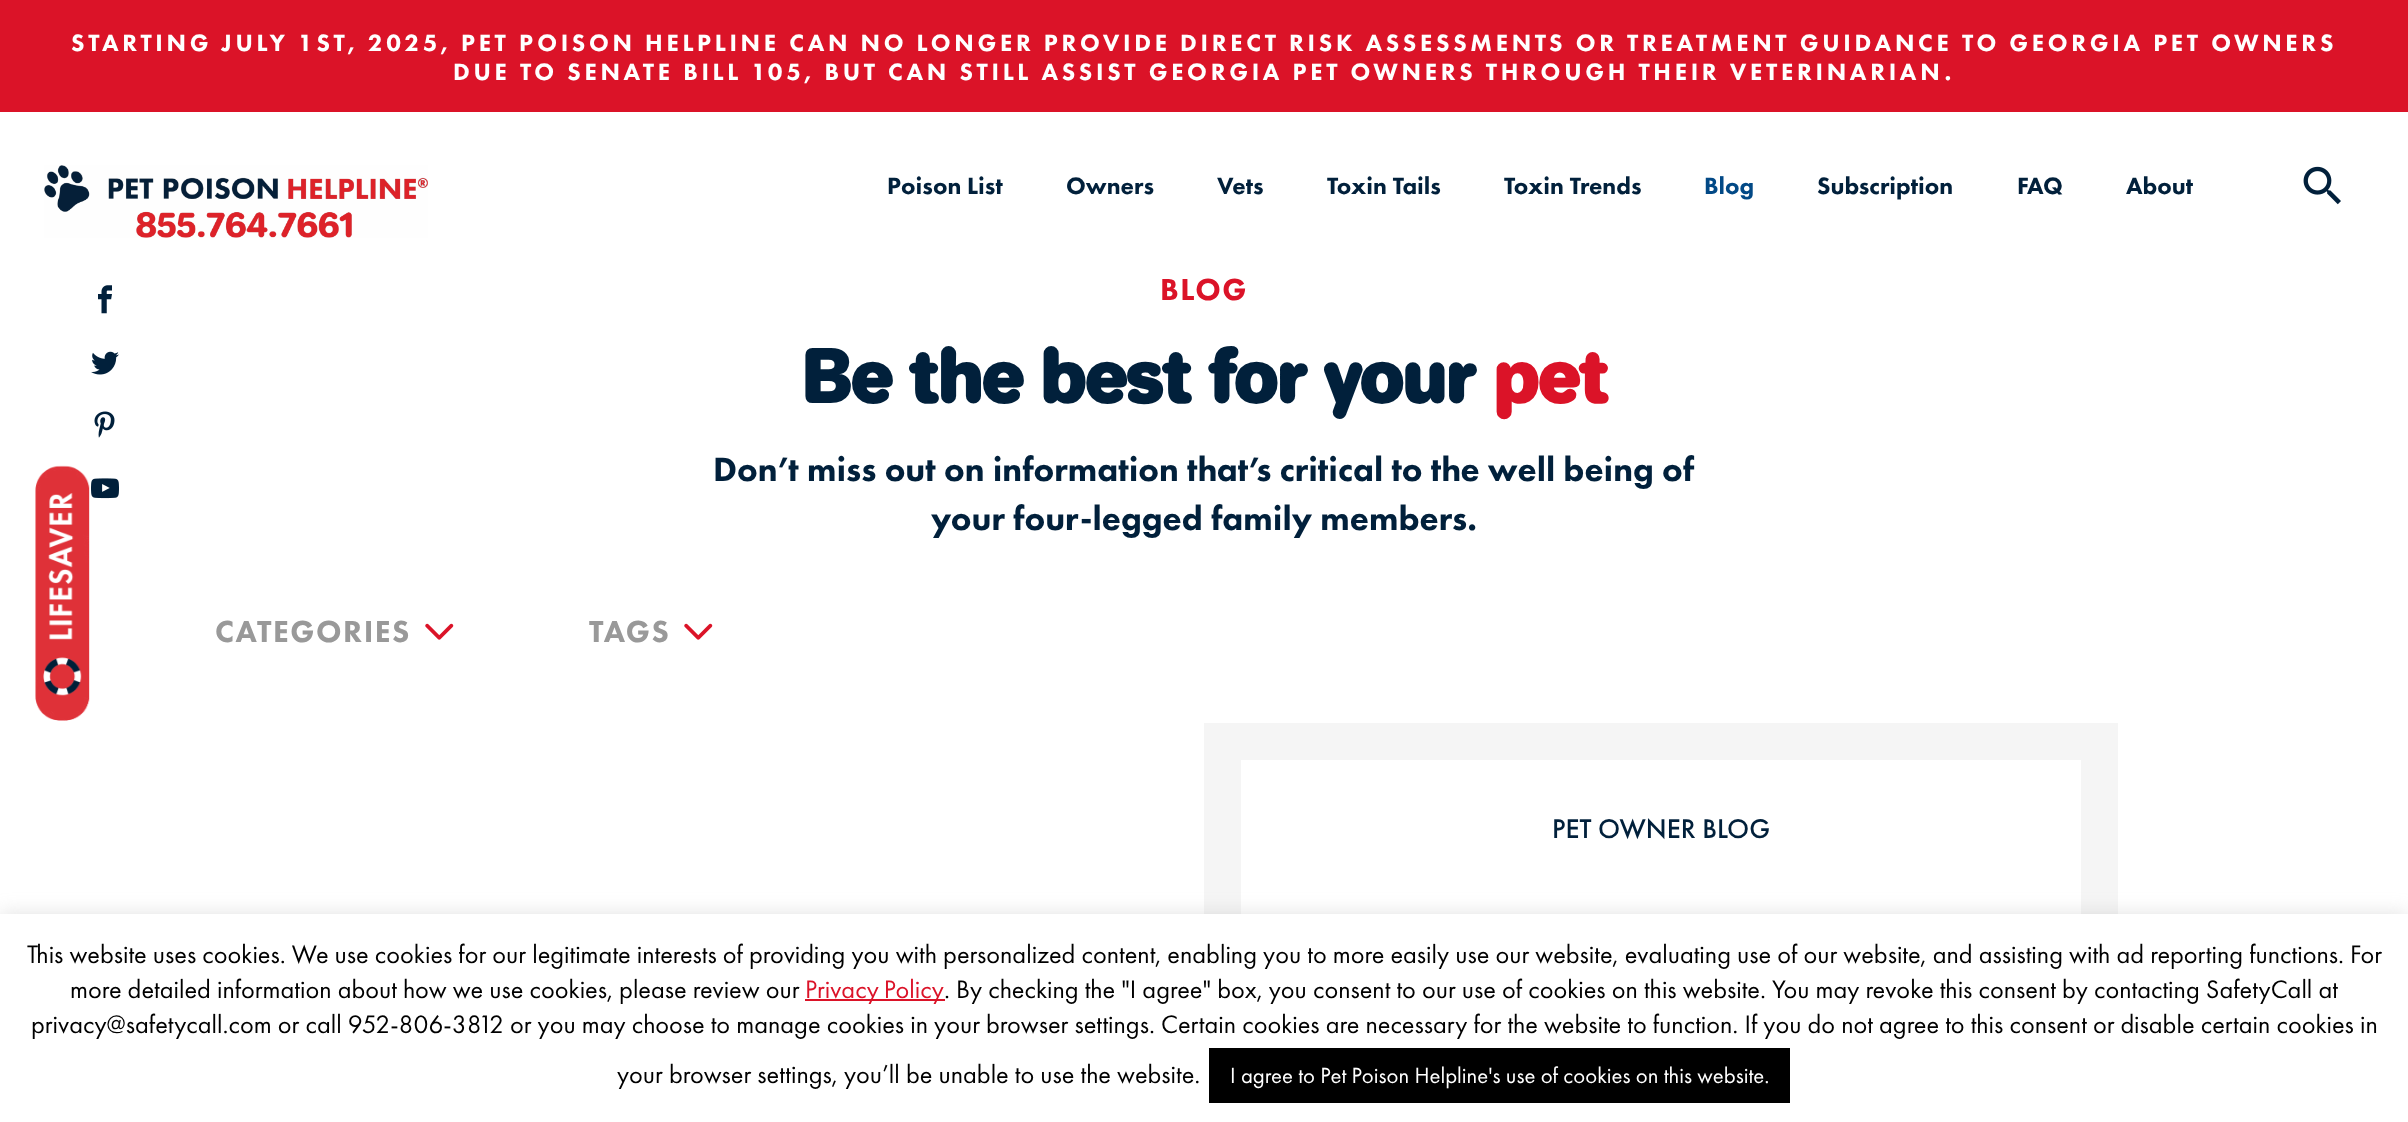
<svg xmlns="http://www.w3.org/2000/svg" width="2408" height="1122">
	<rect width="100%" height="100%" fill="#FFFFFF" />
	<image x="35" y="465" width="55" height="256" href="assets/img1.png" />
	<rect x="0" y="0" width="2408" height="112" fill="#DB1328" />
	<g font-family="Futura PT" font-size="24.5" font-weight="900" letter-spacing="3.68" fill="#FFFFFF">
		<text x="71" y="51">STARTING JULY 1ST, 2025, PET POISON HELPLINE CAN NO LONGER PROVIDE DIRECT RISK ASSESSMENTS OR TREATMENT GUIDANCE TO GEORGIA PET OWNERS</text>
		<text x="453" y="80">DUE TO SENATE BILL 105, BUT CAN STILL ASSIST GEORGIA PET OWNERS THROUGH THEIR VETERINARIAN.</text>
	</g>
	<image x="44" y="165" width="384" height="73" href="assets/img2.png" />
	<g font-family="Futura PT" font-size="24.5" font-weight="900" fill="#01203B">
		<text x="887" y="194">Poison List</text>
		<text x="1066" y="194">Owners</text>
		<text x="1217" y="194">Vets</text>
		<text x="1327" y="194">Toxin Tails</text>
		<text x="1504" y="194">Toxin Trends</text>
	</g>
	<text x="1704" y="194" font-family="Futura PT" font-size="24.5" font-weight="900" fill="#024986">Blog</text>
	<g font-family="Futura PT" font-size="24.5" font-weight="900" fill="#01203B">
		<text x="1817" y="194">Subscription</text>
		<text x="2017" y="194">FAQ</text>
		<text x="2126" y="194">About</text>
	</g>
	<image x="2303" y="166" width="38" height="39" href="assets/img3.png" />
	<image x="98" y="285" width="14" height="29" href="assets/img4.png" />
	<image x="91" y="351" width="28" height="24" href="assets/img5.png" />
	<image x="94" y="411" width="21" height="27" href="assets/img6.png" />
	<image x="91" y="478" width="28" height="21" href="assets/img7.png" />
	<text x="1160" y="300" font-family="Futura PT" font-size="31.5" font-weight="900" letter-spacing="1.5" fill="#DB1328">BLOG</text>
	<text x="801" y="403" font-family="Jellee" font-size="70" font-weight="700" fill="#01203B">Be the best for your</text>
	<text x="1493" y="403" font-family="Jellee" font-size="70" font-weight="700" fill="#DB1328">pet</text>
	<g font-family="Futura PT" font-size="35" font-weight="900" fill="#01203B">
		<text x="713" y="481">Don’t miss out on information that’s critical to the well being of</text>
		<text x="931" y="530">your four-legged family members.</text>
	</g>
	<text x="215" y="642" font-family="Futura PT" font-size="31.5" font-weight="900" letter-spacing="1.5" fill="#999999">CATEGORIES</text>
	<image x="425" y="623" width="29" height="17" href="assets/img8.png" />
	<text x="589" y="642" font-family="Futura PT" font-size="31.5" font-weight="900" letter-spacing="1.5" fill="#999999">TAGS</text>
	<image x="684" y="623" width="29" height="17" href="assets/img8.png" />
	<rect x="1222.5" y="741.5" width="877" height="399" fill="none" stroke="#F5F5F5" stroke-width="37" />
	<text x="1552" y="838" font-family="Futura PT" font-size="28" font-weight="500" fill="#01203B">PET OWNER BLOG</text>
	<rect x="0" y="912" width="2408" height="210" fill="#ACABAB" fill-opacity="0.3" filter="blur(9px)" />
	<rect x="0" y="914" width="2408" height="208" fill="#FFFFFF" />
	<g font-family="Futura PT" font-size="26.25" fill="#000000">
		<text x="27" y="963">This website uses cookies. We use cookies for our legitimate interests of providing you with personalized content, enabling you to more easily use our website, evaluating use of our website, and assisting with ad reporting functions. For</text>
		<text x="70" y="998">more detailed information about how we use cookies, please review our</text>
	</g>
	<rect x="805" y="999" width="140" height="2" fill="#DB1328" />
	<text x="805" y="998" word-spacing="-1" font-family="Futura PT" font-size="26.25" fill="#DB1328">Privacy Policy</text>
	<g font-family="Futura PT" font-size="26.25" fill="#000000">
		<text x="944" y="998">. By checking the "I agree" box, you consent to our use of cookies on this website. You may revoke this consent by contacting SafetyCall at</text>
		<text x="31" y="1033">privacy@safetycall.com or call 952-806-3812 or you may choose to manage cookies in your browser settings. Certain cookies are necessary for the website to function. If you do not agree to this consent or disable certain cookies in</text>
		<text x="617" y="1083">your browser settings, you’ll be unable to use the website.</text>
	</g>
	<rect x="1209" y="1048" width="581" height="55" fill="#000000" />
	<text x="1230" y="1083" font-family="Futura PT" font-size="22.75" fill="#FFFFFF">I agree to Pet Poison Helpline's use of cookies on this website.</text>
</svg>
